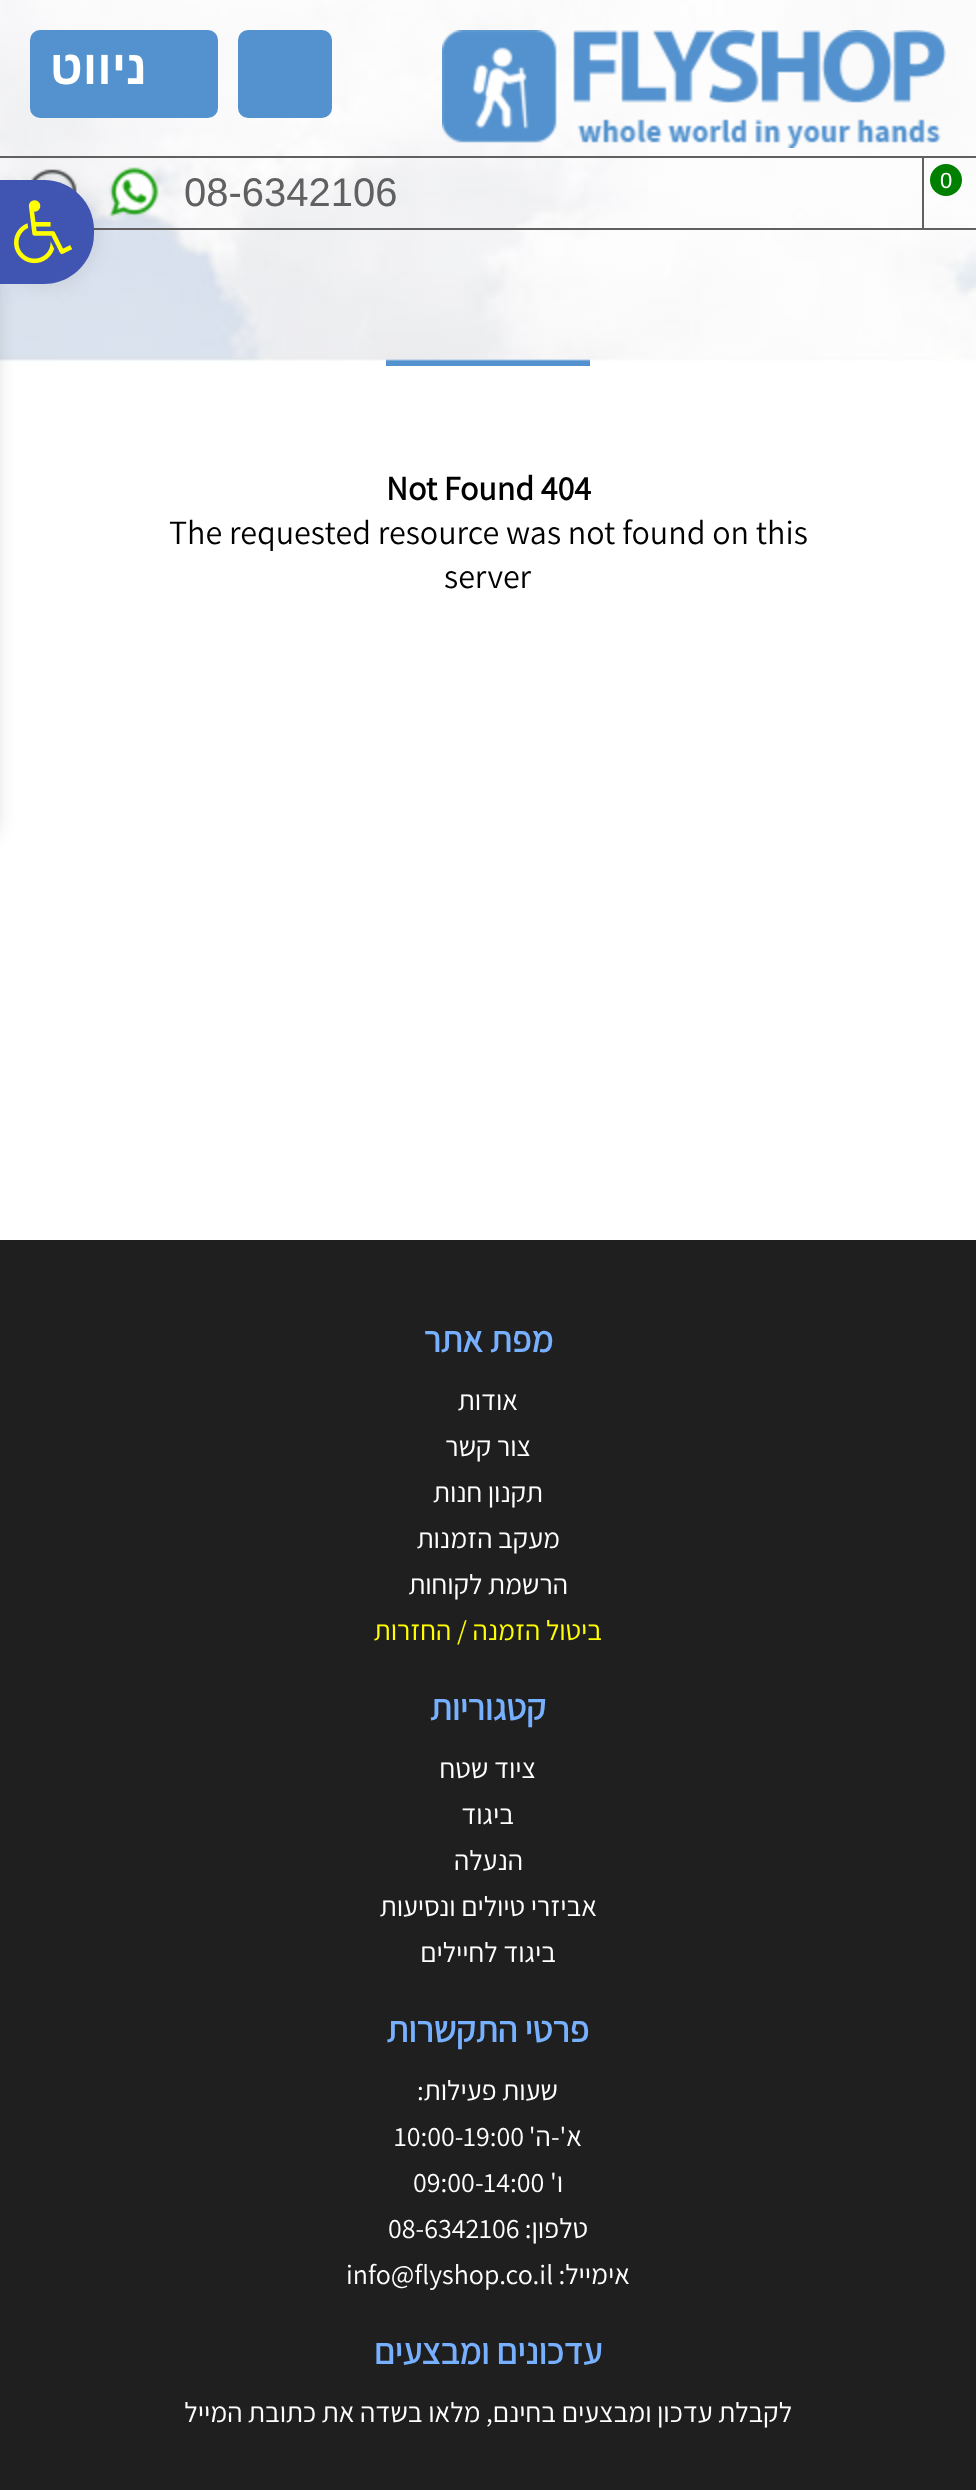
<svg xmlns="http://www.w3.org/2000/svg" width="976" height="2490">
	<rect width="100%" height="100%" fill="#FFFFFF" />
	<image x="0" y="0" width="976" height="362" href="assets/img1.png" />
	<image x="442" y="30" width="504" height="118" href="assets/img2.png" />
	<rect x="238" y="30" width="94" height="88" rx="10" fill="#5392CE" />
	<rect x="30" y="30" width="188" height="88" rx="10" fill="#5392CE" />
	<text x="147" y="84" font-family="Liberation Sans" font-size="48" font-weight="700" direction="rtl" fill="#FFFFFF">ניווט</text>
	<rect x="0" y="156" width="976" height="2" fill="#606060" />
	<rect x="93" y="228" width="883" height="2" fill="#606060" />
	<rect x="922" y="158" width="2" height="70" fill="#606060" />
	<circle cx="946" cy="180" r="16" fill="#008000" />
	<text x="940" y="188" font-family="Liberation Sans" font-size="22" fill="#FFFFFF">0</text>
	<text x="184" y="206" font-family="Liberation Sans" font-size="40" fill="#606060">08-6342106</text>
	<image x="109" y="167" width="50" height="50" href="assets/img3.png" />
	<image x="30" y="169" width="47" height="24" href="assets/img4.png" />
	<image x="386" y="359" width="204" height="7" href="assets/img5.png" />
	<text x="386" y="500" font-family="Assistant" font-size="34" font-weight="700" fill="#000000">Not Found 404</text>
	<g font-family="Assistant" font-size="34" fill="#000000">
		<text x="169" y="544">The requested resource was not found on this</text>
		<text x="444" y="588">server</text>
	</g>
	<rect x="-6" y="180" width="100" height="104" rx="50" fill="#000000" fill-opacity="0.1" filter="blur(10px)" />
	<rect x="-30" y="180" width="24" height="652" fill="#000000" fill-opacity="0.2" filter="blur(10px)" />
	<path d="M-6 180H44C71.5 180 94 202.5 94 230V234C94 261.5 71.5 284 44 284H-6Z" fill="#4054B2" />
	<image x="14" y="200" width="59" height="64" href="assets/img6.png" />
	<rect x="0" y="1240" width="976" height="1250" fill="#1F1F1F" />
	<text x="553" y="1352" font-family="Assistant" font-size="36" font-weight="700" direction="rtl" fill="#77B0FF">מפת אתר</text>
	<g font-family="Assistant" font-size="28" direction="rtl" fill="#FFFFFF">
		<text x="518" y="1410">אודות</text>
		<text x="531" y="1456">צור קשר</text>
		<text x="543" y="1502">תקנון חנות</text>
		<text x="560" y="1548">מעקב הזמנות</text>
		<text x="568" y="1594">הרשמת לקוחות</text>
	</g>
	<text x="602" y="1640" font-family="Assistant" font-size="28" direction="rtl" fill="#FFFF00">ביטול הזמנה / החזרות</text>
	<text x="546" y="1720" font-family="Assistant" font-size="36" font-weight="700" direction="rtl" fill="#77B0FF">קטגוריות</text>
	<g font-family="Assistant" font-size="28" direction="rtl" fill="#FFFFFF">
		<text x="536" y="1778">ציוד שטח</text>
		<text x="514" y="1824">ביגוד</text>
		<text x="523" y="1870">הנעלה</text>
		<text x="597" y="1916">אביזרי טיולים ונסיעות</text>
		<text x="556" y="1962">ביגוד לחיילים</text>
	</g>
	<text x="589" y="2042" font-family="Assistant" font-size="36" font-weight="700" direction="rtl" fill="#77B0FF">פרטי התקשרות</text>
	<g font-family="Assistant" font-size="28" direction="rtl" fill="#FFFFFF">
		<text x="558" y="2100">שעות פעילות:</text>
		<text x="582" y="2146">א'-ה'</text>
	</g>
	<text x="394" y="2146" font-family="Assistant" font-size="28" fill="#FFFFFF">10:00-19:00</text>
	<text x="563" y="2192" font-family="Assistant" font-size="28" direction="rtl" fill="#FFFFFF">ו'</text>
	<text x="413" y="2192" font-family="Assistant" font-size="28" fill="#FFFFFF">09:00-14:00</text>
	<text x="588" y="2238" font-family="Assistant" font-size="28" direction="rtl" fill="#FFFFFF">טלפון:</text>
	<text x="388" y="2238" font-family="Assistant" font-size="28" fill="#FFFFFF">08-6342106</text>
	<text x="630" y="2284" font-family="Assistant" font-size="28" direction="rtl" fill="#FFFFFF">אימייל:</text>
	<text x="346" y="2284" font-family="Assistant" font-size="28" fill="#FFFFFF">info@flyshop.co.il</text>
	<text x="602" y="2364" font-family="Assistant" font-size="36" font-weight="700" direction="rtl" fill="#77B0FF">עדכונים ומבצעים</text>
	<text x="792" y="2422" font-family="Assistant" font-size="28" direction="rtl" fill="#FFFFFF">לקבלת עדכון ומבצעים בחינם, מלאו בשדה את כתובת המייל</text>
</svg>
